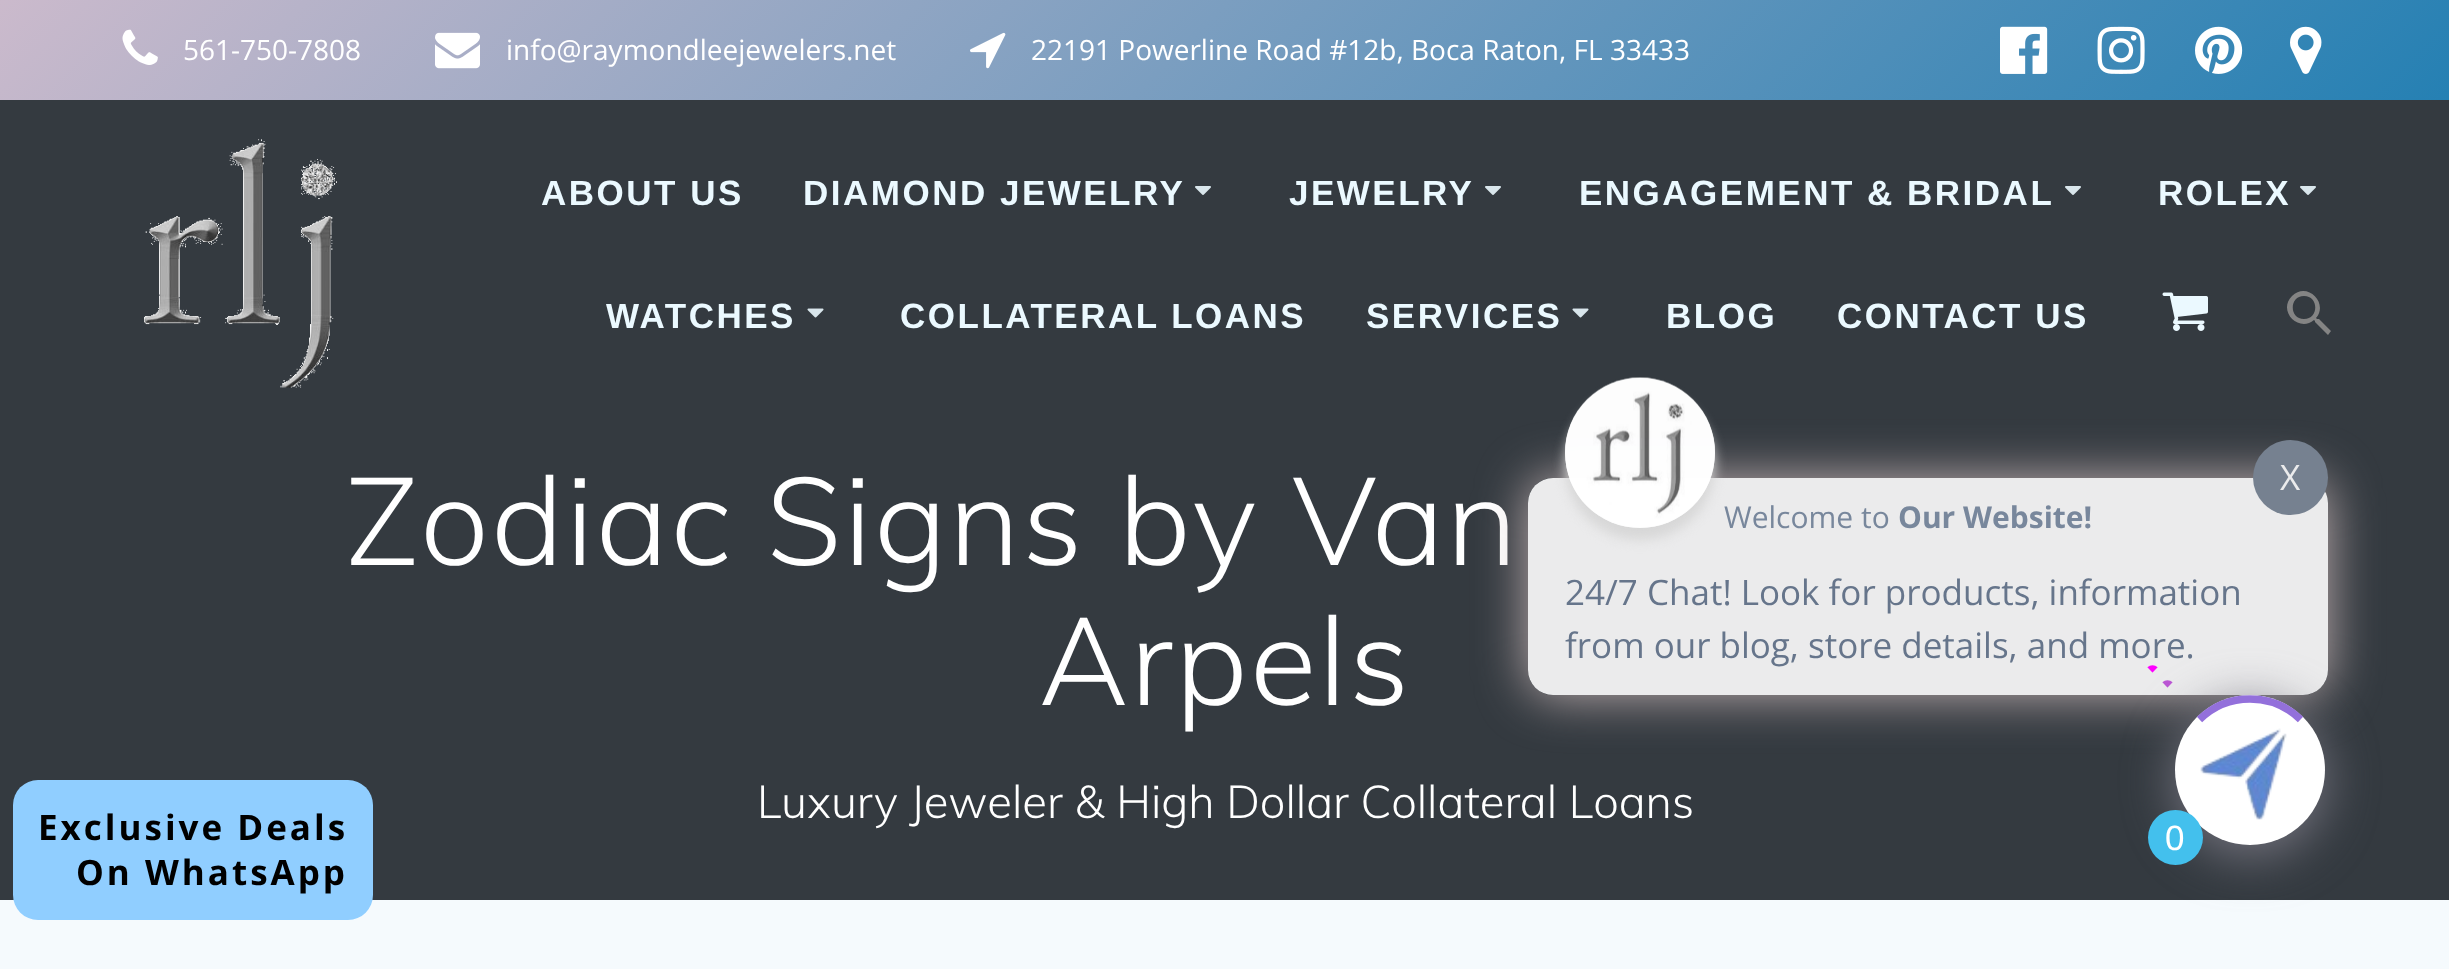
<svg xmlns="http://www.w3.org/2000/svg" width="2449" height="969">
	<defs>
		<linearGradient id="g1" gradientUnits="userSpaceOnUse" x1="588" y1="-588" x2="1863" y2="688"><stop offset="0" stop-color="#CBBACC" /><stop offset="1" stop-color="#2580B3" /></linearGradient>
		<clipPath id="clip1"><path d="M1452 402H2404V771H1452ZM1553 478H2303C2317 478 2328 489 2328 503V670C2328 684 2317 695 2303 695H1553C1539 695 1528 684 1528 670V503C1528 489 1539 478 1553 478Z" clip-rule="evenodd" /></clipPath>
		<clipPath id="clip2"><path d="M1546 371H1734V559H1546ZM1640 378C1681.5 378 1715 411.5 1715 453C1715 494.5 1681.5 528 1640 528C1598.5 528 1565 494.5 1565 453C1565 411.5 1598.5 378 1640 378Z" clip-rule="evenodd" /></clipPath>
	</defs>
	<rect width="100%" height="100%" fill="#343A40" />
	<rect x="0" y="0" width="2449" height="100" fill="url(#g1)" />
	<image x="122" y="29" width="36" height="36" href="assets/img1.png" />
	<text x="183" y="60" font-family="Open Sans" font-size="28" fill="#FFFFFF">561-750-7808</text>
	<image x="435" y="32" width="45" height="37" href="assets/img2.png" />
	<text x="506" y="60" font-family="Open Sans" font-size="28" fill="#FFFFFF">info@raymondleejewelers.net</text>
	<image x="970" y="32" width="36" height="37" href="assets/img3.png" />
	<text x="1031" y="60" font-family="Open Sans" font-size="28" fill="#FFFFFF">22191 Powerline Road #12b, Boca Raton, FL 33433</text>
	<image x="2000" y="26" width="48" height="48" href="assets/img4.png" />
	<image x="2097" y="26" width="48" height="48" href="assets/img5.png" />
	<image x="2195" y="26" width="48" height="48" href="assets/img6.png" />
	<image x="2290" y="26" width="32" height="48" href="assets/img7.png" />
	<image x="144" y="139" width="193" height="249" href="assets/img8.png" />
	<g font-family="Liberation Sans" font-size="35" font-weight="700" letter-spacing="2.5" fill="#EBF9FF">
		<text x="541" y="205">ABOUT US</text>
		<text x="803" y="205">DIAMOND JEWELRY</text>
	</g>
	<image x="1195" y="186" width="16" height="9" href="assets/img9.png" />
	<text x="1289" y="205" font-family="Liberation Sans" font-size="35" font-weight="700" letter-spacing="2.5" fill="#EBF9FF">JEWELRY</text>
	<image x="1485" y="186" width="16" height="9" href="assets/img9.png" />
	<text x="1579" y="205" font-family="Liberation Sans" font-size="35" font-weight="700" letter-spacing="2.5" fill="#EBF9FF">ENGAGEMENT &amp; BRIDAL</text>
	<image x="2065" y="186" width="16" height="9" href="assets/img9.png" />
	<text x="2158" y="205" font-family="Liberation Sans" font-size="35" font-weight="700" letter-spacing="2.5" fill="#EBF9FF">ROLEX</text>
	<image x="2300" y="186" width="16" height="9" href="assets/img9.png" />
	<text x="606" y="328" font-family="Liberation Sans" font-size="35" font-weight="700" letter-spacing="2.5" fill="#EBF9FF">WATCHES</text>
	<image x="807" y="308" width="17" height="10" href="assets/img10.png" />
	<g font-family="Liberation Sans" font-size="35" font-weight="700" letter-spacing="2.5" fill="#EBF9FF">
		<text x="900" y="328">COLLATERAL LOANS</text>
		<text x="1366" y="328">SERVICES</text>
	</g>
	<image x="1572" y="308" width="17" height="10" href="assets/img10.png" />
	<g font-family="Liberation Sans" font-size="35" font-weight="700" letter-spacing="2.5" fill="#EBF9FF">
		<text x="1666" y="328">BLOG</text>
		<text x="1837" y="328">CONTACT US</text>
	</g>
	<image x="2162" y="292" width="46" height="39" href="assets/img11.png" />
	<path d="M2319 319H2317L2316 318C2329 303 2307 281 2292 296C2277 311 2299 333 2314 320L2315 321V322L2328 335L2331 331ZM2304 319C2289 319 2289 296 2304 296C2319 296 2319 319 2304 319Z" fill="#848484" />
	<g font-family="Muli" font-size="122.5" font-weight="300" letter-spacing="2.25" fill="#FFFFFF">
		<text x="346" y="565">Zodiac Signs by Van</text>
		<text x="1039" y="705">Arpels</text>
	</g>
	<text x="757" y="818" font-family="Muli" font-size="45.5" font-weight="300" fill="#FFFFFF">Luxury Jeweler &amp; High Dollar Collateral Loans</text>
	<rect x="0" y="900" width="2449" height="69" fill="#F5FAFD" />
	<g clip-path="url(#clip1)">
		<rect x="1528" y="478" width="800" height="217" rx="25" fill="#CEBDBD" fill-opacity="0.9" filter="blur(25px)" />
	</g>
	<rect x="1528" y="478" width="800" height="217" rx="25" fill="#FFFFFF" fill-opacity="0.9" />
	<circle cx="2290.5" cy="477.5" r="37.5" fill="#768190" />
	<text x="2280" y="490" font-family="Open Sans" font-size="35" fill="#EBEBEC">X</text>
	<g clip-path="url(#clip2)">
		<rect x="1565" y="390" width="150" height="150" rx="75" fill="#D5D5D5" fill-opacity="0.9" filter="blur(6px)" />
	</g>
	<circle cx="1640" cy="453" r="75" fill="#FFFFFF" fill-opacity="0.9" />
	<image x="1565" y="377" width="150" height="150" href="assets/img12.png" />
	<text x="1724" y="528" font-family="Open Sans" font-size="30" fill="#78879C">Welcome to</text>
	<text x="1898" y="528" font-family="Open Sans" font-size="30" font-weight="700" fill="#78879C">Our Website!</text>
	<g font-family="Open Sans" font-size="35" fill="#66758B">
		<text x="1565" y="605">24/7 Chat! Look for products, information</text>
		<text x="1565" y="658">from our blog, store details, and more.</text>
	</g>
	<rect x="2175" y="705" width="150" height="150" rx="75" fill="#767580" filter="blur(25px)" />
	<circle cx="2250" cy="770" r="75" fill="#FFFFFF" />
	<path d="M2199.5 719.5C2227.5 692 2272.5 692 2300.5 719.5" fill="none" stroke="#9370DB" stroke-width="7.5" />
	<path d="M2150 670C2151.5 668.5 2153.5 668.5 2155 670" fill="none" stroke="#FF00FF" stroke-width="7.5" />
	<path d="M2165 685C2166.5 683.5 2168.5 683.5 2170 685" fill="none" stroke="#BA55D3" stroke-width="7.5" />
	<image x="2200" y="728" width="87" height="92" href="assets/img13.png" />
	<circle cx="2175.5" cy="837.5" r="27.5" fill="#43C0ED" />
	<text x="2165" y="850" font-family="Liberation Sans" font-size="35" fill="#FFFFFF">0</text>
	<rect x="13" y="780" width="360" height="140" rx="25" fill="#90CEFF" />
	<g font-family="Open Sans" font-size="35" font-weight="700" letter-spacing="3" fill="#000000">
		<text x="38" y="840">Exclusive Deals</text>
		<text x="76" y="885">On WhatsApp</text>
	</g>
</svg>
